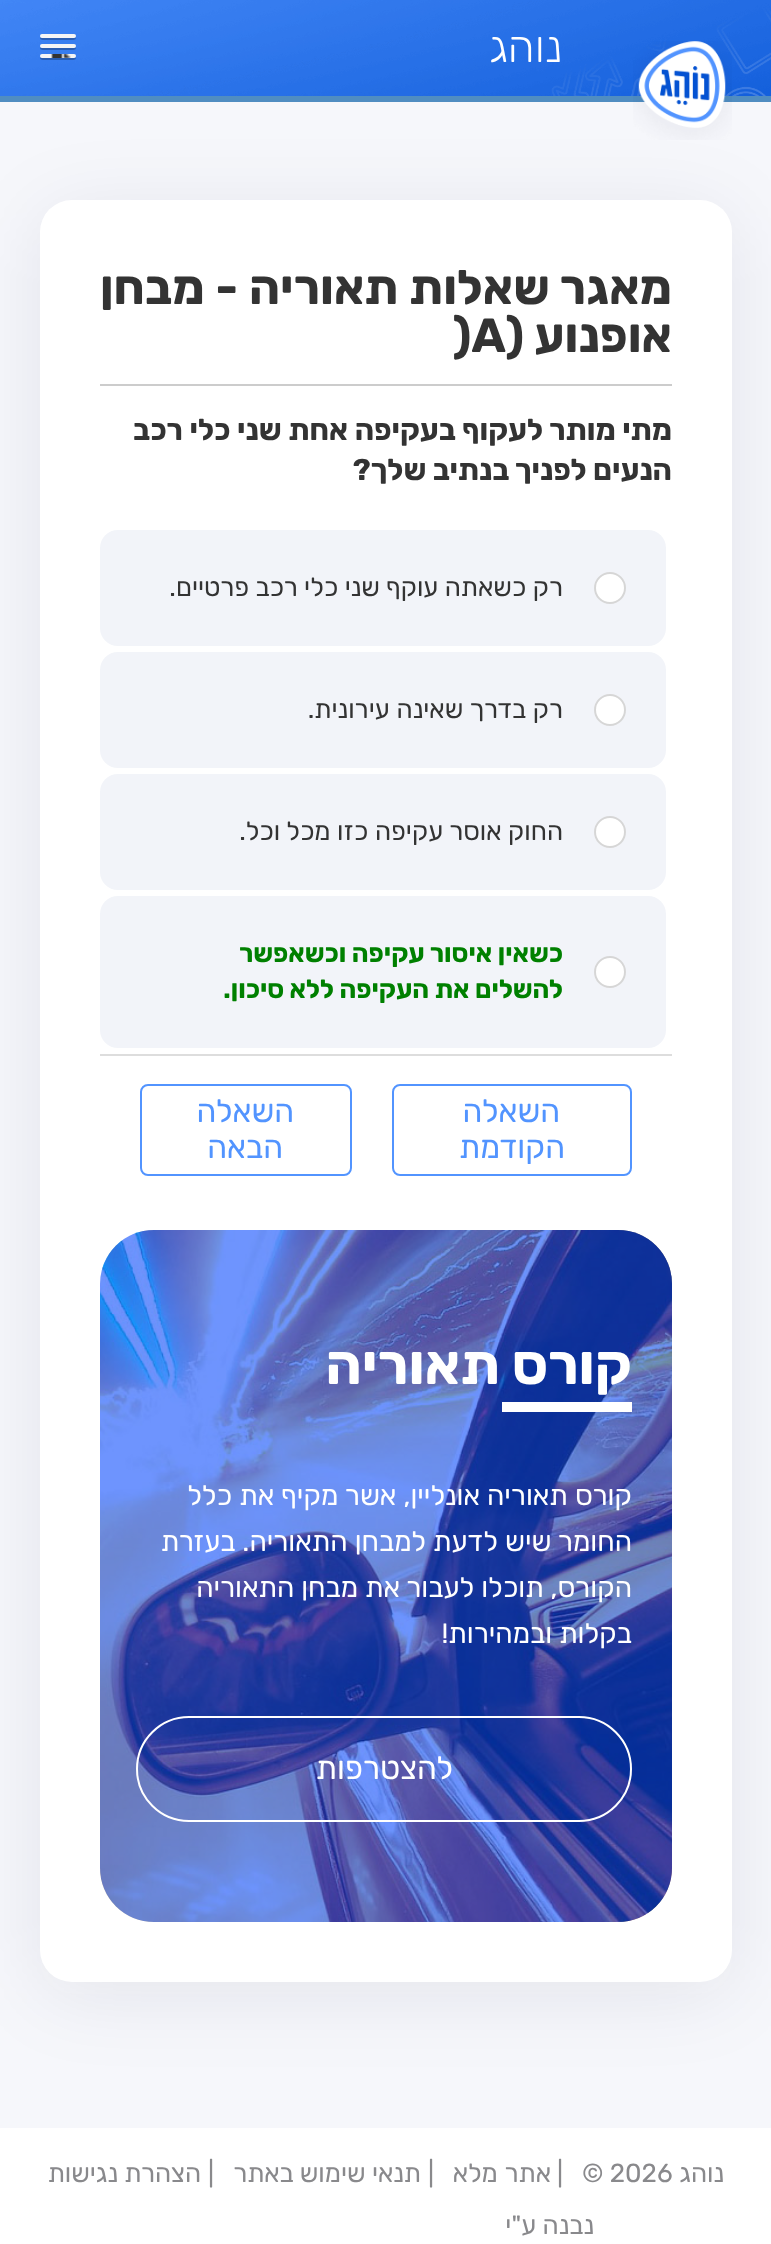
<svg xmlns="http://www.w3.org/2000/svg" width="771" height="2244">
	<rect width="100%" height="100%" fill="#F6F7FB" />
	<rect x="40" y="212" width="692" height="1782" rx="32" fill="#070E31" fill-opacity="0.08" filter="blur(40px)" />
	<image x="0" y="0" width="771" height="96" href="assets/img1.png" />
	<rect x="0" y="96" width="771" height="6" fill="#508DC1" />
	<image x="633" y="41" width="99" height="99" href="assets/img2.png" />
	<text x="562" y="62" font-family="Rubik" font-size="44" font-weight="300" direction="rtl" fill="#FFFFFF">נוהג</text>
	<path d="M40.5 37C38 41 47 40 47.5 40H68.5C69 40 78 41 75.5 37C75.5 37.5 74.5 38 74 38H42C41.5 38 40.5 37.5 40.5 37Z" fill="#2B5FB5" />
	<rect x="40" y="34" width="36" height="4" rx="2" fill="#F5F5F5" />
	<path d="M40.5 47C38 51 47 50 47.5 50H68.5C69 50 78 51 75.5 47C75.5 47.5 74.5 48 74 48H42C41.5 48 40.5 47.5 40.5 47Z" fill="#2A5EB4" />
	<rect x="40" y="44" width="36" height="4" rx="2" fill="#F5F5F5" />
	<path d="M40.5 57C38 61 47 60 47.5 60H68.5C69 60 78 61 75.5 57C75.5 57.5 74.5 58 74 58H42C41.5 58 40.5 57.5 40.5 57Z" fill="#285DB3" />
	<rect x="40" y="54" width="36" height="4" rx="2" fill="#F5F5F5" />
	<image x="51" y="54" width="20" height="4" href="assets/img3.png" />
	<rect x="40" y="200" width="692" height="1782" rx="32" fill="#FFFFFF" />
	<rect x="100" y="384" width="572" height="2" fill="#CCCCCC" />
	<g font-family="Rubik" font-size="48" font-weight="700" direction="rtl" fill="#333333">
		<text x="672" y="304" word-spacing="0.5">מאגר שאלות תאוריה - מבחן</text>
		<text x="672" y="352">אופנוע (</text>
	</g>
	<text x="453" y="352" font-family="Rubik" font-size="48" font-weight="700" fill="#333333">)A</text>
	<g font-family="Rubik" font-size="30" font-weight="700" direction="rtl" fill="#333333">
		<text x="672" y="440" word-spacing="0.25">מתי מותר לעקוף בעקיפה אחת שני כלי רכב</text>
		<text x="672" y="480">הנעים לפניך בנתיב שלך?</text>
	</g>
	<rect x="100" y="530" width="566" height="116" rx="18" fill="#F2F4F9" />
	<circle cx="610" cy="588" r="16" fill="#FFFFFF" />
	<circle cx="610" cy="588" r="15" fill="none" stroke="#767676" stroke-opacity="0.3" stroke-width="2" />
	<text x="563" y="596" font-family="Rubik" font-size="26" direction="rtl" fill="#333333">רק כשאתה עוקף שני כלי רכב פרטיים.</text>
	<rect x="100" y="652" width="566" height="116" rx="18" fill="#F2F4F9" />
	<circle cx="610" cy="710" r="16" fill="#FFFFFF" />
	<circle cx="610" cy="710" r="15" fill="none" stroke="#767676" stroke-opacity="0.3" stroke-width="2" />
	<text x="563" y="718" word-spacing="0.5" font-family="Rubik" font-size="26" direction="rtl" fill="#333333">רק בדרך שאינה עירונית.</text>
	<rect x="100" y="774" width="566" height="116" rx="18" fill="#F2F4F9" />
	<circle cx="610" cy="832" r="16" fill="#FFFFFF" />
	<circle cx="610" cy="832" r="15" fill="none" stroke="#767676" stroke-opacity="0.3" stroke-width="2" />
	<text x="563" y="840" word-spacing="0.25" font-family="Rubik" font-size="26" direction="rtl" fill="#333333">החוק אוסר עקיפה כזו מכל וכל.</text>
	<rect x="100" y="896" width="566" height="152" rx="18" fill="#F2F4F9" />
	<circle cx="610" cy="972" r="16" fill="#FFFFFF" />
	<circle cx="610" cy="972" r="15" fill="none" stroke="#767676" stroke-opacity="0.3" stroke-width="2" />
	<g font-family="Rubik" font-size="26" font-weight="700" direction="rtl" fill="#008000">
		<text x="563" y="962">כשאין איסור עקיפה וכשאפשר</text>
		<text x="563" y="998">להשלים את העקיפה ללא סיכון.</text>
	</g>
	<rect x="100" y="1054" width="572" height="2" fill="#DDDDDD" />
	<rect x="393" y="1085" width="238" height="90" rx="7" fill="none" stroke="#5294FF" stroke-width="2" />
	<g font-family="Rubik" font-size="32" direction="rtl" fill="#5294FF">
		<text x="560" y="1122">השאלה</text>
		<text x="565" y="1158">הקודמת</text>
	</g>
	<rect x="141" y="1085" width="210" height="90" rx="7" fill="none" stroke="#5294FF" stroke-width="2" />
	<g font-family="Rubik" font-size="32" direction="rtl" fill="#5294FF">
		<text x="294" y="1122">השאלה</text>
		<text x="283" y="1158">הבאה</text>
	</g>
	<image x="100" y="1230" width="572" height="692" href="assets/img4.png" />
	<rect x="100" y="1230" width="572" height="692" rx="54" fill="#0042FD" fill-opacity="0.57" />
	<text x="632" y="1384" font-family="Rubik" font-size="56" font-weight="700" direction="rtl" fill="#FFFFFF">קורס תאוריה</text>
	<rect x="502" y="1402" width="130" height="10" fill="#FFFFFF" />
	<g font-family="Rubik" font-size="28" direction="rtl" fill="#FFFFFF">
		<text x="632" y="1505" word-spacing="0.25">קורס תאוריה אונליין, אשר מקיף את כלל</text>
		<text x="632" y="1551" word-spacing="0.25">החומר שיש לדעת למבחן התאוריה. בעזרת</text>
		<text x="632" y="1597">הקורס, תוכלו לעבור את מבחן התאוריה</text>
		<text x="632" y="1643">בקלות ובמהירות!</text>
	</g>
	<rect x="137" y="1717" width="494" height="104" rx="52" fill="none" stroke="#FFFFFF" stroke-width="2" />
	<text x="453" y="1779" font-family="Rubik" font-size="32" direction="rtl" fill="#FFFFFF">להצטרפות</text>
	<rect x="0" y="2128" width="771" height="116" fill="#FFFFFF" />
	<text x="724" y="2182" font-family="Rubik" font-size="26" direction="rtl" fill="#89898C">נוהג</text>
	<g font-family="Rubik" font-size="26" fill="#89898C">
		<text x="582" y="2182">© 2026</text>
		<text x="557" y="2182">|</text>
	</g>
	<text x="551" y="2182" word-spacing="1" font-family="Rubik" font-size="26" direction="rtl" fill="#89898C">אתר מלא</text>
	<text x="428" y="2182" font-family="Rubik" font-size="26" fill="#89898C">|</text>
	<text x="421" y="2182" font-family="Rubik" font-size="26" direction="rtl" fill="#89898C">תנאי שימוש באתר</text>
	<text x="208" y="2182" font-family="Rubik" font-size="26" fill="#89898C">|</text>
	<g font-family="Rubik" font-size="26" direction="rtl" fill="#89898C">
		<text x="201" y="2182">הצהרת נגישות</text>
		<text x="594" y="2234">נבנה ע"י</text>
	</g>
</svg>
